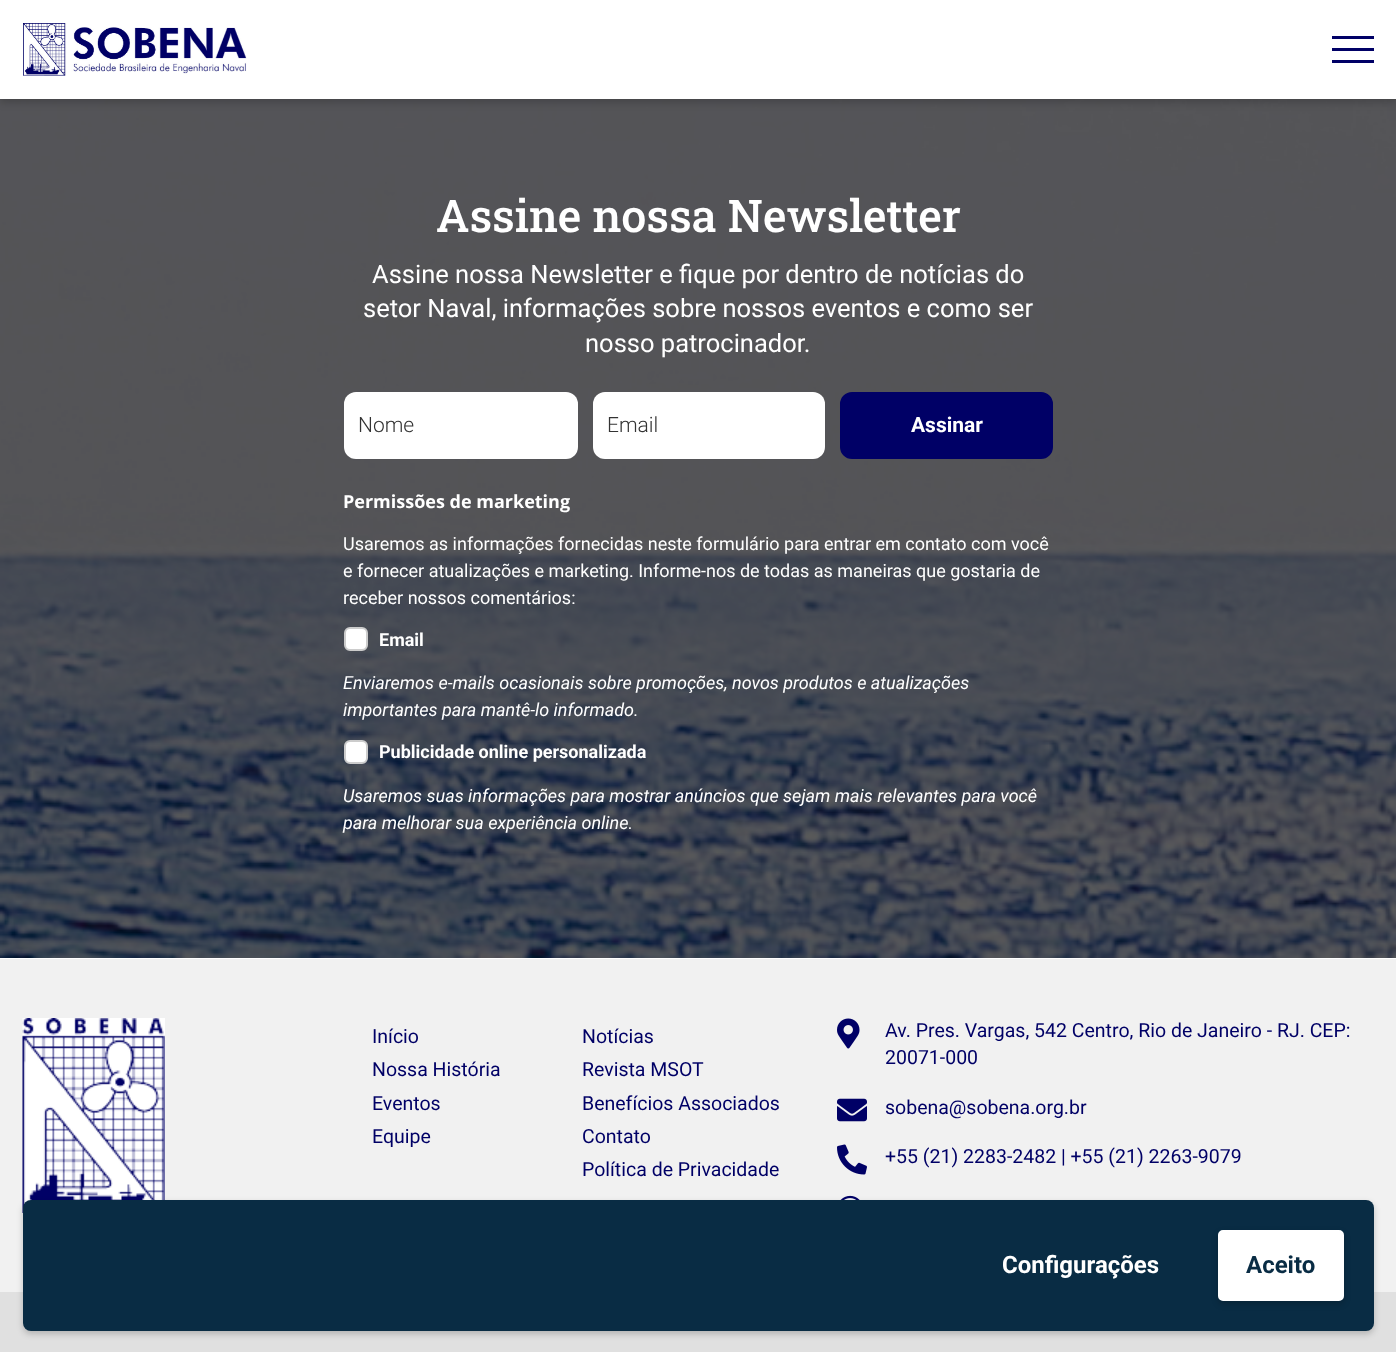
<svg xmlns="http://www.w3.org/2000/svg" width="1396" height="1352">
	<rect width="100%" height="100%" fill="#FFFFFF" />
	<image x="0" y="99" width="1396" height="859" href="assets/img2.png" />
	<rect x="0" y="3" width="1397" height="99" fill="#000000" fill-opacity="0.2" filter="blur(4.5px)" />
	<rect x="0" y="0" width="1396" height="99" fill="#FFFFFF" />
	<image x="23" y="23" width="224" height="53" href="assets/img1.png" />
	<rect x="1332" y="36" width="42" height="3" fill="#000066" />
	<rect x="1332" y="48" width="42" height="3" fill="#000066" />
	<rect x="1332" y="60" width="42" height="3" fill="#000066" />
	<text x="436" y="232" font-family="Roboto Slab" font-size="45" font-weight="500" fill="#FFFFFF">Assine nossa Newsletter</text>
	<g font-family="Roboto" font-size="25.5" fill="#FFFFFF">
		<text x="372" y="283">Assine nossa Newsletter e fique por dentro de notícias do</text>
		<text x="363" y="317">setor Naval, informações sobre nossos eventos e como ser</text>
		<text x="585" y="352">nosso patrocinador.</text>
	</g>
	<rect x="344" y="392" width="234" height="67" rx="12" fill="#FFFFFF" />
	<text x="358" y="432" font-family="Roboto" font-size="21" font-weight="300" fill="#333333">Nome</text>
	<rect x="593" y="392" width="232" height="67" rx="12" fill="#FFFFFF" />
	<text x="607" y="432" font-family="Roboto" font-size="21" font-weight="300" fill="#333333">Email</text>
	<rect x="841" y="393" width="211" height="65" rx="11" fill="#000066" stroke="#000066" stroke-width="2" />
	<text x="911" y="432" font-family="Roboto" font-size="21" font-weight="700" fill="#FFFFFF">Assinar</text>
	<text x="343" y="508" font-family="Open Sans" font-size="18" font-weight="700" fill="#FFFFFF">Permissões de marketing</text>
	<g font-family="Roboto" font-size="18" fill="#FFFFFF">
		<text x="343" y="550">Usaremos as informações fornecidas neste formulário para entrar em contato com você</text>
		<text x="343" y="577">e fornecer atualizações e marketing. Informe-nos de todas as maneiras que gostaria de</text>
		<text x="343" y="604">receber nossos comentários:</text>
	</g>
	<rect x="345" y="628" width="22" height="22" rx="5" fill="#FFFFFF" stroke="#CCCCCC" stroke-width="2" />
	<text x="379" y="646" font-family="Roboto" font-size="18" font-weight="700" fill="#FFFFFF">Email</text>
	<g font-family="Roboto" font-size="18" font-style="italic" fill="#FFFFFF">
		<text x="343" y="689">Enviaremos e-mails ocasionais sobre promoções, novos produtos e atualizações</text>
		<text x="343" y="716">importantes para mantê-lo informado.</text>
	</g>
	<rect x="345" y="741" width="22" height="22" rx="5" fill="#FFFFFF" stroke="#CCCCCC" stroke-width="2" />
	<text x="379" y="758" font-family="Roboto" font-size="18" font-weight="700" fill="#FFFFFF">Publicidade online personalizada</text>
	<g font-family="Roboto" font-size="18" font-style="italic" fill="#FFFFFF">
		<text x="343" y="802">Usaremos suas informações para mostrar anúncios que sejam mais relevantes para você</text>
		<text x="343" y="829">para melhorar sua experiência online.</text>
	</g>
	<rect x="0" y="959" width="1396" height="333" fill="#F1F1F1" />
	<image x="22" y="1018" width="143" height="195" href="assets/img3.png" />
	<g font-family="Roboto" font-size="19.5" fill="#000066">
		<text x="372" y="1043">Início</text>
		<text x="372" y="1076">Nossa História</text>
		<text x="372" y="1110">Eventos</text>
		<text x="372" y="1143">Equipe</text>
		<text x="582" y="1043">Notícias</text>
		<text x="582" y="1076">Revista MSOT</text>
		<text x="582" y="1110">Benefícios Associados</text>
		<text x="582" y="1143">Contato</text>
		<text x="582" y="1176">Política de Privacidade</text>
	</g>
	<image x="837" y="1018" width="23" height="31" href="assets/img4.png" />
	<g font-family="Roboto" font-size="19.5" fill="#000066">
		<text x="885" y="1037">Av. Pres. Vargas, 542 Centro, Rio de Janeiro - RJ. CEP:</text>
		<text x="885" y="1064">20071-000</text>
	</g>
	<image x="837" y="1098" width="30" height="24" href="assets/img5.png" />
	<text x="885" y="1114" font-family="Roboto" font-size="19.5" fill="#000066">sobena@sobena.org.br</text>
	<image x="837" y="1144" width="30" height="31" href="assets/img6.png" />
	<text x="885" y="1163" font-family="Roboto" font-size="19.5" fill="#000066">+55 (21) 2283-2482 | +55 (21) 2263-9079</text>
	<image x="840" y="1195" width="20" height="5" href="assets/img7.png" />
	<rect x="0" y="1292" width="1396" height="60" fill="#E0E0E0" />
	<rect x="23" y="1203" width="1351" height="131" rx="8" fill="#000000" fill-opacity="0.2" filter="blur(3px)" />
	<rect x="23" y="1200" width="1351" height="131" rx="8" fill="#092C44" />
	<text x="1002" y="1273" font-family="Roboto" font-size="24" font-weight="700" fill="#FFFFFF">Configurações</text>
	<rect x="1218" y="1233" width="126" height="71" rx="5" fill="#000000" fill-opacity="0.2" filter="blur(3px)" />
	<rect x="1219" y="1231" width="124" height="69" rx="4" fill="#FFFFFF" stroke="#FFFFFF" stroke-width="2" />
	<text x="1246" y="1273" font-family="Roboto" font-size="24" font-weight="700" fill="#092C44">Aceito</text>
</svg>
